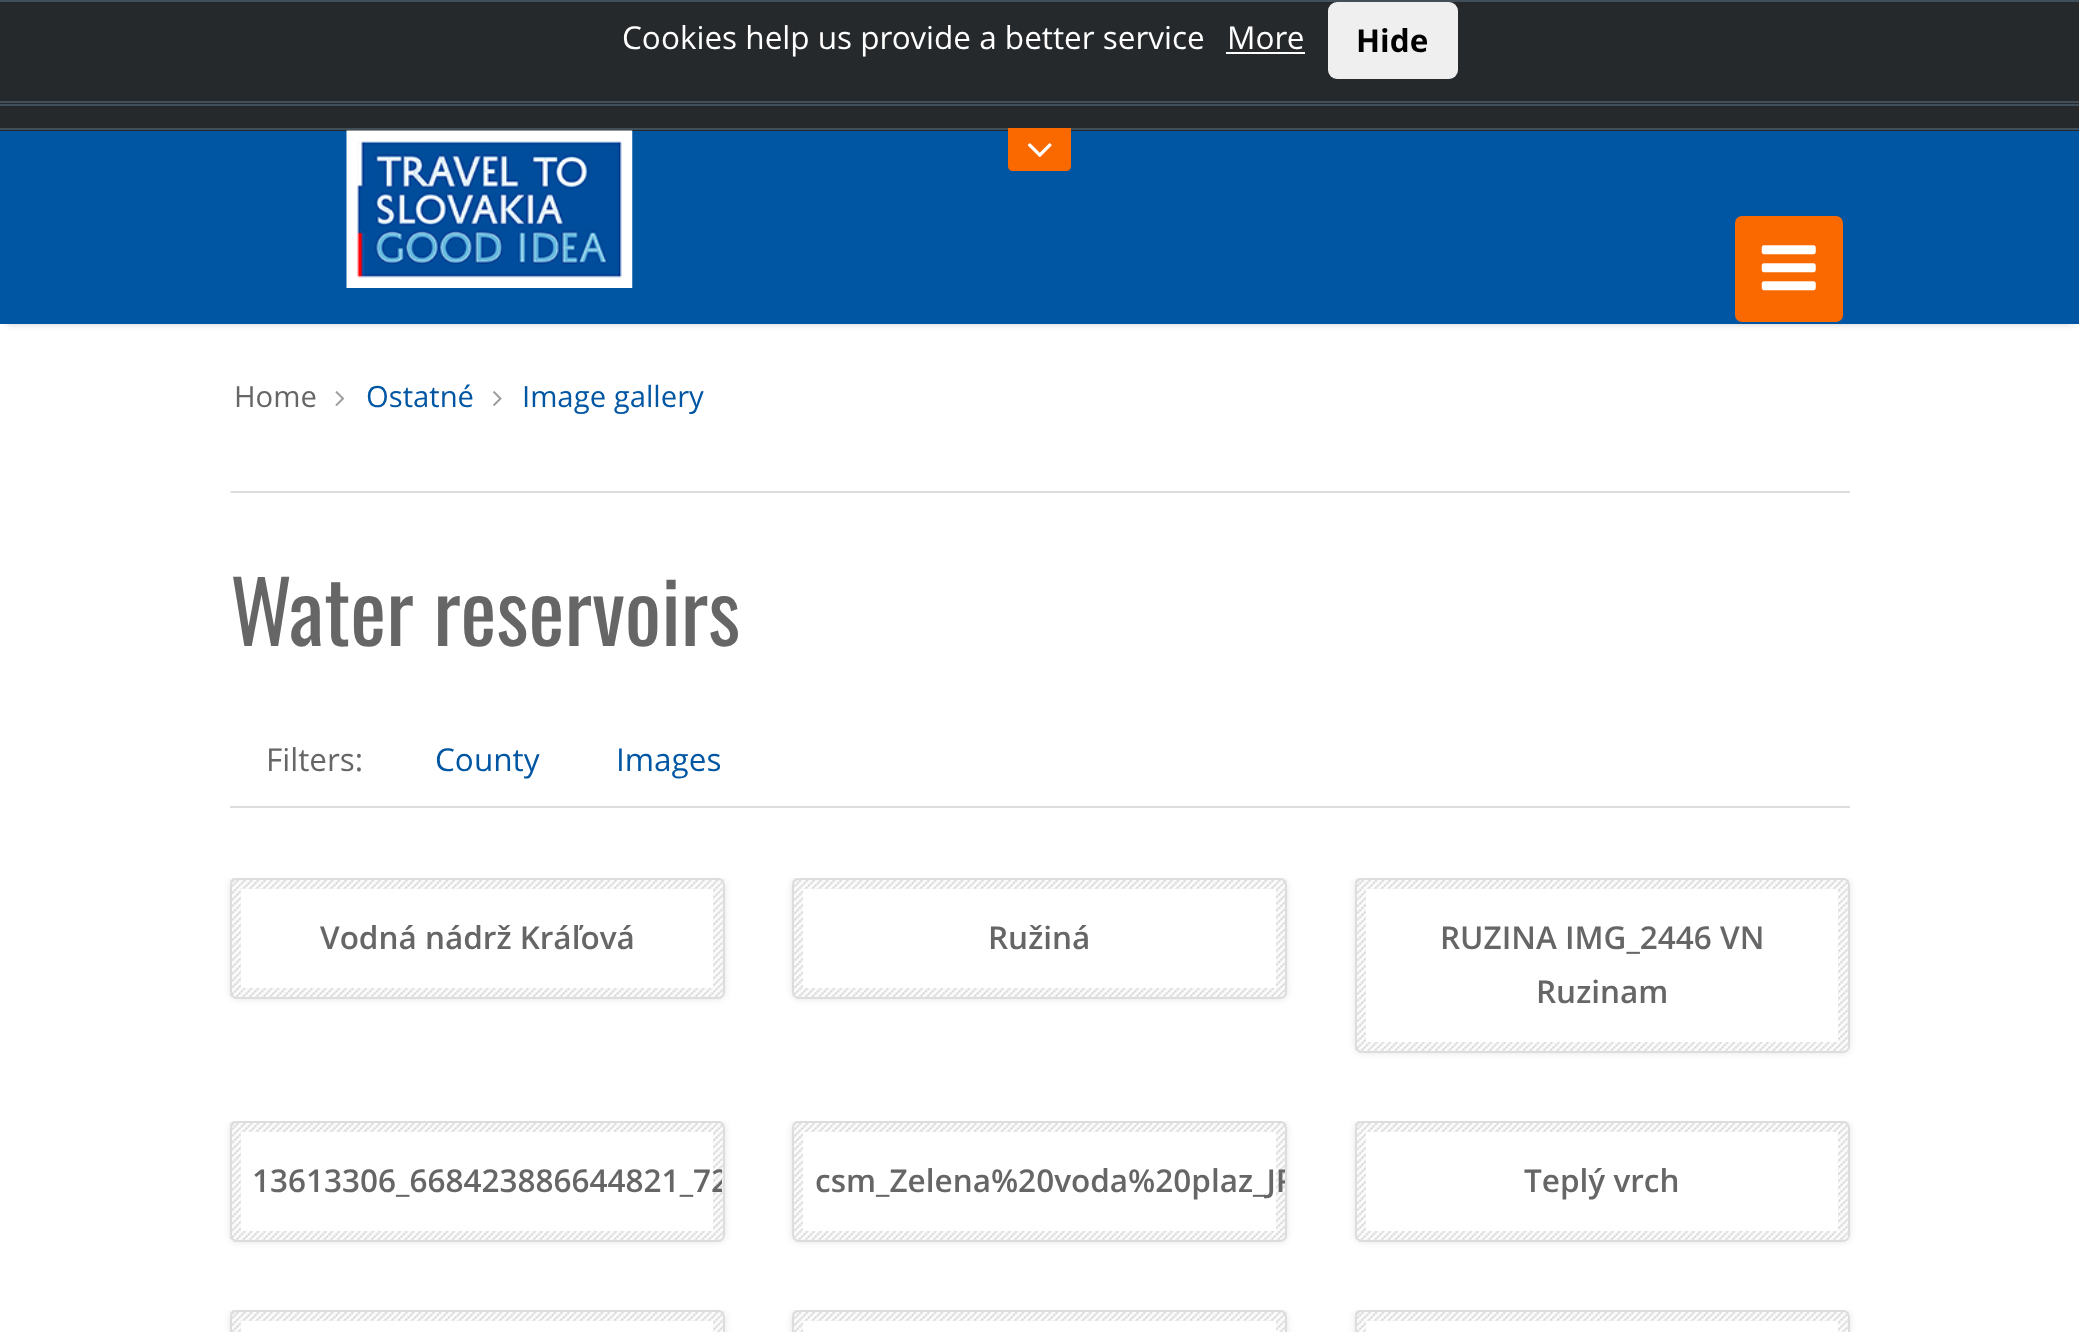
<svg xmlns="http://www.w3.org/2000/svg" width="2079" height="1332">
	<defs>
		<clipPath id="clip1"><rect x="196" y="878" width="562" height="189" /></clipPath>
		<clipPath id="clip2"><path d="M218 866H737V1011H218ZM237 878H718C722 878 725 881 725 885V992C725 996 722 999 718 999H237C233 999 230 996 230 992V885C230 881 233 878 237 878Z" clip-rule="evenodd" /></clipPath>
		<clipPath id="clip3"><rect x="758" y="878" width="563" height="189" /></clipPath>
		<clipPath id="clip4"><path d="M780 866H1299V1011H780ZM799 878H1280C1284 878 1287 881 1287 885V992C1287 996 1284 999 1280 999H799C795 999 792 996 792 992V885C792 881 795 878 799 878Z" clip-rule="evenodd" /></clipPath>
		<clipPath id="clip5"><rect x="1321" y="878" width="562" height="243" /></clipPath>
		<clipPath id="clip6"><path d="M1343 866H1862V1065H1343ZM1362 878H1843C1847 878 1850 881 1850 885V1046C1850 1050 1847 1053 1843 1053H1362C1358 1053 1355 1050 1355 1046V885C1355 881 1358 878 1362 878Z" clip-rule="evenodd" /></clipPath>
		<clipPath id="clip7"><rect x="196" y="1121" width="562" height="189" /></clipPath>
		<clipPath id="clip8"><path d="M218 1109H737V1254H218ZM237 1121H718C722 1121 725 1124 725 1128V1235C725 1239 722 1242 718 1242H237C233 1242 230 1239 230 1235V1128C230 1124 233 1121 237 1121Z" clip-rule="evenodd" /></clipPath>
		<clipPath id="clip9"><rect x="232" y="1123" width="490" height="117" rx="5" /></clipPath>
		<clipPath id="clip10"><rect x="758" y="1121" width="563" height="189" /></clipPath>
		<clipPath id="clip11"><path d="M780 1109H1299V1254H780ZM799 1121H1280C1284 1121 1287 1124 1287 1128V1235C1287 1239 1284 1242 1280 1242H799C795 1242 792 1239 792 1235V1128C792 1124 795 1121 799 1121Z" clip-rule="evenodd" /></clipPath>
		<clipPath id="clip12"><rect x="794" y="1123" width="491" height="117" rx="5" /></clipPath>
		<clipPath id="clip13"><rect x="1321" y="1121" width="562" height="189" /></clipPath>
		<clipPath id="clip14"><path d="M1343 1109H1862V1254H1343ZM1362 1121H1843C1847 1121 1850 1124 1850 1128V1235C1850 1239 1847 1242 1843 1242H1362C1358 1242 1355 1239 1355 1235V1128C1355 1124 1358 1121 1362 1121Z" clip-rule="evenodd" /></clipPath>
		<clipPath id="clip15"><rect x="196" y="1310" width="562" height="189" /></clipPath>
		<clipPath id="clip16"><path d="M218 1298H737V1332H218ZM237 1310H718C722 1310 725 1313 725 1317V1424C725 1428 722 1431 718 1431H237C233 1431 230 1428 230 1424V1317C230 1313 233 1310 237 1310Z" clip-rule="evenodd" /></clipPath>
		<clipPath id="clip17"><rect x="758" y="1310" width="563" height="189" /></clipPath>
		<clipPath id="clip18"><path d="M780 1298H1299V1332H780ZM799 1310H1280C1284 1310 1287 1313 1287 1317V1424C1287 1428 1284 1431 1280 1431H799C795 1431 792 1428 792 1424V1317C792 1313 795 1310 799 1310Z" clip-rule="evenodd" /></clipPath>
		<clipPath id="clip19"><rect x="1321" y="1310" width="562" height="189" /></clipPath>
		<clipPath id="clip20"><path d="M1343 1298H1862V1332H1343ZM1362 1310H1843C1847 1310 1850 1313 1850 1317V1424C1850 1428 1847 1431 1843 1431H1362C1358 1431 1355 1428 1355 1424V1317C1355 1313 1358 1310 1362 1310Z" clip-rule="evenodd" /></clipPath>
	</defs>
	<rect width="100%" height="100%" fill="#25292C" />
	<rect x="0" y="0" width="2079" height="2" fill="#414F5A" />
	<rect x="0" y="101" width="2079" height="2" fill="#414F5A" />
	<g font-family="Open Sans" font-size="31.5" fill="#FFFFFF">
		<text x="622" y="49">Cookies help us provide a better service</text>
		<text x="1227" y="49">More</text>
	</g>
	<rect x="1226" y="52" width="79" height="2" fill="#FFFFFF" />
	<rect x="1328" y="2" width="130" height="77" rx="9" fill="#EFEFEF" />
	<text x="1356" y="52" font-family="Open Sans" font-size="31.5" font-weight="700" fill="#000000">Hide</text>
	<rect x="0" y="104" width="2079" height="2" fill="#414F5A" />
	<rect x="0" y="128" width="2079" height="2" fill="#414F5A" />
	<rect x="0" y="324" width="2079" height="1008" fill="#FFFFFF" />
	<rect x="7" y="144" width="2065" height="180" fill="#000000" fill-opacity="0.2" filter="blur(3.5px)" />
	<rect x="0" y="131" width="2079" height="193" fill="#0056A3" />
	<image x="346" y="130" width="287" height="158" href="assets/img1.png" />
	<path d="M1008 128H1071V166C1071 169 1069 171 1066 171H1013C1010 171 1008 169 1008 166Z" fill="#FA6900" />
	<image x="1027" y="143" width="25" height="14" href="assets/img2.png" />
	<rect x="1735" y="216" width="108" height="106" rx="7" fill="#FA6900" />
	<image x="1761" y="245" width="55" height="46" href="assets/img3.png" />
	<text x="234" y="407" font-family="Open Sans" font-size="29.25" fill="#666666">Home</text>
	<image x="335" y="391" width="10" height="15" href="assets/img4.png" />
	<text x="366" y="407" font-family="Open Sans" font-size="29.25" fill="#0056A3">Ostatné</text>
	<image x="493" y="391" width="9" height="15" href="assets/img5.png" />
	<text x="522" y="407" font-family="Open Sans" font-size="29.25" fill="#0056A3">Image gallery</text>
	<rect x="232" y="491" width="1618" height="2" fill="#DDDDDD" />
	<circle cx="231" cy="492" r="1" fill="#DDDDDD" />
	<text x="230" y="646" font-family="Oswald" font-size="85.5" fill="#666666">Water reservoirs</text>
	<rect x="230" y="806" width="1620" height="2" fill="#DDDDDD" />
	<text x="266" y="771" font-family="Open Sans" font-size="31.5" fill="#666666">Filters:</text>
	<g font-family="Open Sans" font-size="31.5" fill="#0056A3">
		<text x="435" y="771">County</text>
		<text x="616" y="771">Images</text>
	</g>
	<g clip-path="url(#clip1)">
		<g clip-path="url(#clip2)">
			<rect x="230" y="878" width="495" height="121" rx="7" fill="#000000" fill-opacity="0.1" filter="blur(3.5px)" />
		</g>
	</g>
	<image x="230" y="878" width="494" height="121" href="assets/img6.png" />
	<rect x="231" y="879" width="493" height="119" rx="6" fill="none" stroke="#DDDDDD" stroke-width="2" />
	<rect x="241" y="889" width="472" height="99" fill="#FFFFFF" />
	<text x="320" y="949" font-family="Open Sans" font-size="31.5" font-weight="600" fill="#666666">Vodná nádrž Kráľová</text>
	<g clip-path="url(#clip3)">
		<g clip-path="url(#clip4)">
			<rect x="792" y="878" width="495" height="121" rx="7" fill="#000000" fill-opacity="0.1" filter="blur(3.5px)" />
		</g>
	</g>
	<image x="792" y="878" width="495" height="121" href="assets/img7.png" />
	<rect x="793" y="879" width="493" height="119" rx="6" fill="none" stroke="#DDDDDD" stroke-width="2" />
	<rect x="803" y="889" width="473" height="99" fill="#FFFFFF" />
	<text x="988" y="949" font-family="Open Sans" font-size="31.5" font-weight="600" fill="#666666">Ružiná</text>
	<g clip-path="url(#clip5)">
		<g clip-path="url(#clip6)">
			<rect x="1355" y="878" width="495" height="175" rx="7" fill="#000000" fill-opacity="0.1" filter="blur(3.5px)" />
		</g>
	</g>
	<image x="1355" y="878" width="494" height="175" href="assets/img8.png" />
	<rect x="1356" y="879" width="493" height="173" rx="6" fill="none" stroke="#DDDDDD" stroke-width="2" />
	<rect x="1366" y="889" width="472" height="153" fill="#FFFFFF" />
	<g font-family="Open Sans" font-size="31.5" font-weight="600" fill="#666666">
		<text x="1440" y="949">RUZINA IMG_2446 VN</text>
		<text x="1536" y="1003">Ruzinam</text>
	</g>
	<g clip-path="url(#clip7)">
		<g clip-path="url(#clip8)">
			<rect x="230" y="1121" width="495" height="121" rx="7" fill="#000000" fill-opacity="0.1" filter="blur(3.5px)" />
		</g>
	</g>
	<image x="230" y="1121" width="494" height="121" href="assets/img6.png" />
	<rect x="231" y="1122" width="493" height="119" rx="6" fill="none" stroke="#DDDDDD" stroke-width="2" />
	<rect x="241" y="1132" width="472" height="99" fill="#FFFFFF" />
	<g clip-path="url(#clip9)">
		<text x="252" y="1192" font-family="Open Sans" font-size="31.5" font-weight="600" fill="#666666">13613306_668423886644821_72</text>
	</g>
	<g clip-path="url(#clip10)">
		<g clip-path="url(#clip11)">
			<rect x="792" y="1121" width="495" height="121" rx="7" fill="#000000" fill-opacity="0.1" filter="blur(3.5px)" />
		</g>
	</g>
	<image x="792" y="1121" width="495" height="121" href="assets/img7.png" />
	<rect x="793" y="1122" width="493" height="119" rx="6" fill="none" stroke="#DDDDDD" stroke-width="2" />
	<rect x="803" y="1132" width="473" height="99" fill="#FFFFFF" />
	<g clip-path="url(#clip12)">
		<text x="815" y="1192" font-family="Open Sans" font-size="31.5" font-weight="600" fill="#666666">csm_Zelena%20voda%20plaz_JP</text>
	</g>
	<g clip-path="url(#clip13)">
		<g clip-path="url(#clip14)">
			<rect x="1355" y="1121" width="495" height="121" rx="7" fill="#000000" fill-opacity="0.1" filter="blur(3.5px)" />
		</g>
	</g>
	<image x="1355" y="1121" width="494" height="121" href="assets/img9.png" />
	<rect x="1356" y="1122" width="493" height="119" rx="6" fill="none" stroke="#DDDDDD" stroke-width="2" />
	<rect x="1366" y="1132" width="472" height="99" fill="#FFFFFF" />
	<text x="1524" y="1192" font-family="Open Sans" font-size="31.5" font-weight="600" fill="#666666">Teplý vrch</text>
	<g clip-path="url(#clip15)">
		<g clip-path="url(#clip16)">
			<rect x="230" y="1310" width="495" height="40" rx="7" fill="#000000" fill-opacity="0.1" filter="blur(3.5px)" />
		</g>
	</g>
	<image x="230" y="1310" width="494" height="22" href="assets/img10.png" />
	<rect x="231" y="1311" width="493" height="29" rx="6" fill="none" stroke="#DDDDDD" stroke-width="2" />
	<rect x="241" y="1321" width="472" height="11" fill="#FFFFFF" />
	<g clip-path="url(#clip17)">
		<g clip-path="url(#clip18)">
			<rect x="792" y="1310" width="495" height="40" rx="7" fill="#000000" fill-opacity="0.1" filter="blur(3.5px)" />
		</g>
	</g>
	<image x="792" y="1310" width="495" height="22" href="assets/img11.png" />
	<rect x="793" y="1311" width="493" height="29" rx="6" fill="none" stroke="#DDDDDD" stroke-width="2" />
	<rect x="803" y="1321" width="473" height="11" fill="#FFFFFF" />
	<g clip-path="url(#clip19)">
		<g clip-path="url(#clip20)">
			<rect x="1355" y="1310" width="495" height="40" rx="7" fill="#000000" fill-opacity="0.1" filter="blur(3.5px)" />
		</g>
	</g>
	<image x="1355" y="1310" width="494" height="22" href="assets/img12.png" />
	<rect x="1356" y="1311" width="493" height="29" rx="6" fill="none" stroke="#DDDDDD" stroke-width="2" />
	<rect x="1366" y="1321" width="472" height="11" fill="#FFFFFF" />
</svg>
